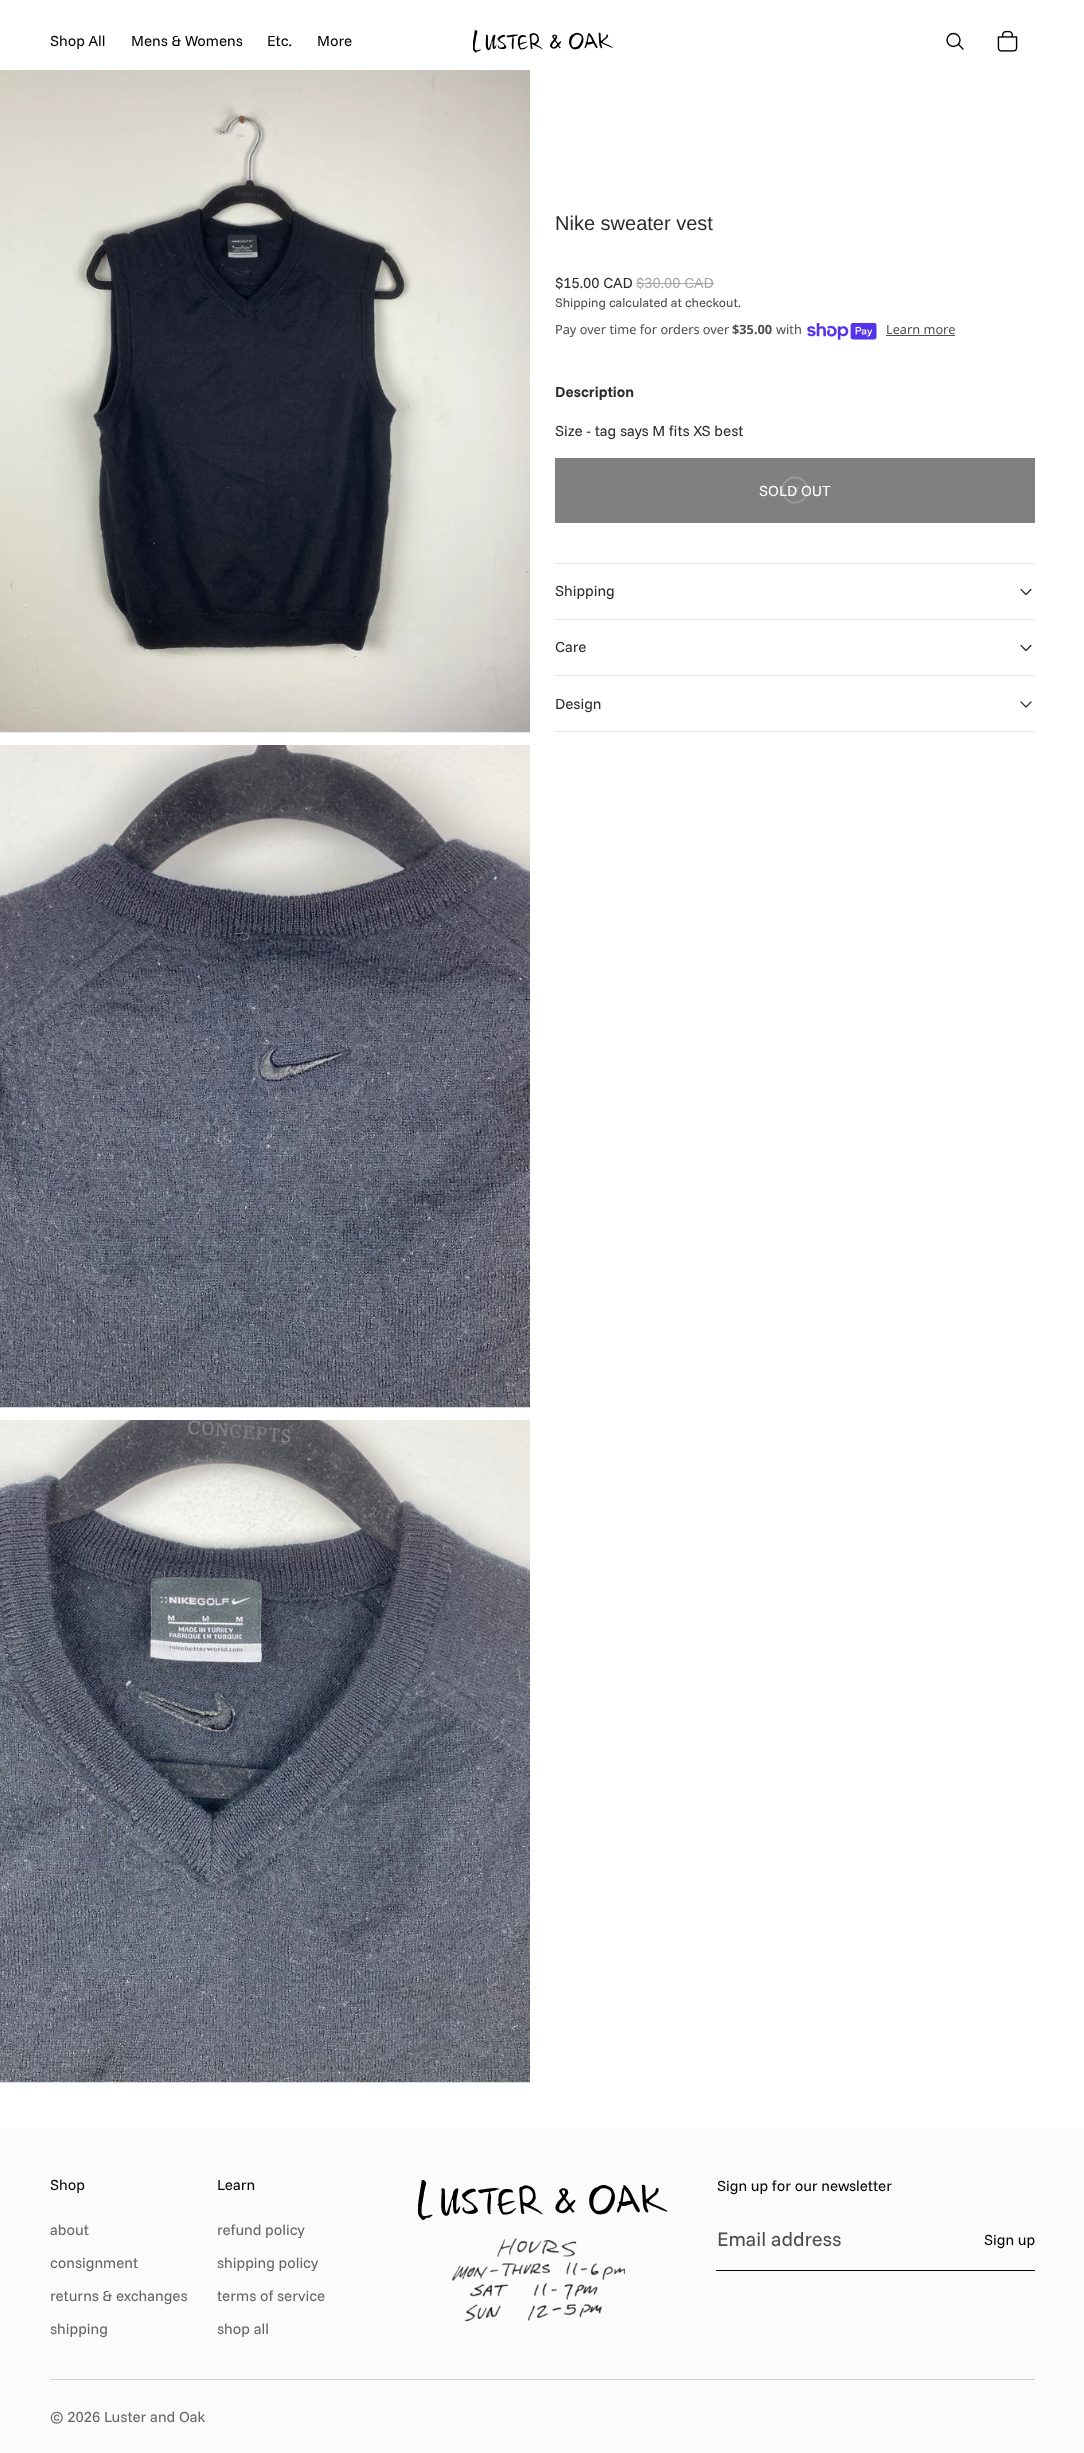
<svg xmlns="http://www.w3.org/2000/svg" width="1084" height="2453">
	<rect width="100%" height="100%" fill="#FFFFFF" />
	<g font-family="Funnel Sans" font-size="15" fill="#000000">
		<text x="50" y="46">Shop All</text>
		<text x="131" y="46">Mens &amp; Womens</text>
		<text x="267" y="46">Etc.</text>
		<text x="317" y="46">More</text>
	</g>
	<image x="473" y="30" width="140" height="23" href="assets/img1.png" />
	<circle cx="953.5" cy="40" r="6.5" fill="none" stroke="#000000" stroke-width="1.4" />
	<path d="M958.5 44.5L963 49" fill="none" stroke="#000000" stroke-width="1.4" stroke-linecap="round" stroke-linejoin="round" />
	<image x="997" y="30" width="21" height="22" href="assets/img2.png" />
	<image x="0" y="70" width="530" height="663" href="assets/img3.png" />
	<image x="0" y="745" width="530" height="663" href="assets/img4.png" />
	<image x="0" y="1420" width="530" height="663" href="assets/img5.png" />
	<text x="555" y="230" font-family="Liberation Sans" font-size="20" fill="#2B2B2B">Nike sweater vest</text>
	<text x="555" y="288" font-family="Funnel Sans" font-size="15" fill="#2B2B2B">$15.00 CAD</text>
	<text x="636" y="288" font-family="Funnel Sans" font-size="15" fill="#AAAAAA">$30.00 CAD</text>
	<rect x="636" y="283" width="78" height="1" fill="#999999" fill-opacity="0.83" />
	<text x="555" y="307" font-family="Funnel Sans" font-size="12.75" fill="#4D4D4D">Shipping calculated at checkout.</text>
	<text x="555" y="334" font-family="Noto Sans" font-size="12.75" fill="#4D4D4D">Pay over time for orders over</text>
	<text x="732" y="334" font-family="Noto Sans" font-size="12.75" font-weight="700" fill="#4D4D4D">$35.00</text>
	<text x="776" y="334" font-family="Noto Sans" font-size="12.75" fill="#4D4D4D">with</text>
	<image x="807" y="323" width="70" height="17" href="assets/img6.png" />
	<text x="886" y="334" font-family="Noto Sans" font-size="12.75" fill="#4D4D4D">Learn more</text>
	<rect x="886" y="335" width="69" height="1" fill="#4D4D4D" />
	<text x="555" y="397" font-family="Funnel Sans" font-size="15" font-weight="700" fill="#2B2B2B">Description</text>
	<text x="555" y="436" font-family="Funnel Sans" font-size="15" fill="#2B2B2B">Size - tag says M fits XS best</text>
	<rect x="555" y="458" width="480" height="65" fill="#808080" />
	<text x="759" y="496" font-family="Funnel Sans" font-size="15" fill="#FFFFFF">SOLD OUT</text>
	<circle cx="795" cy="490" r="12.5" fill="none" stroke="#FFFFFF" stroke-opacity="0.2" stroke-width="1.9" />
	<path d="M791 491L794 493.5L798.5 487" fill="none" stroke="#FFFFFF" stroke-opacity="0.2" stroke-width="1.9" stroke-linecap="round" stroke-linejoin="round" />
	<rect x="555" y="563" width="480" height="1" fill="#E6E6E6" />
	<text x="555" y="596" font-family="Funnel Sans" font-size="15" fill="#2B2B2B">Shipping</text>
	<path d="M1031 589.5L1026 594.5L1021 589.5" fill="none" stroke="#2B2B2B" stroke-width="1.2" stroke-linecap="round" stroke-linejoin="round" />
	<rect x="555" y="619" width="480" height="1" fill="#E6E6E6" />
	<text x="555" y="652" font-family="Funnel Sans" font-size="15" fill="#2B2B2B">Care</text>
	<path d="M1031 645.5L1026 650.5L1021 645.5" fill="none" stroke="#2B2B2B" stroke-width="1.2" stroke-linecap="round" stroke-linejoin="round" />
	<rect x="555" y="675" width="480" height="1" fill="#E6E6E6" />
	<rect x="555" y="731" width="480" height="1" fill="#E6E6E6" />
	<text x="555" y="709" font-family="Funnel Sans" font-size="15" fill="#2B2B2B">Design</text>
	<path d="M1031 702L1026 707L1021 702" fill="none" stroke="#2B2B2B" stroke-width="1.2" stroke-linecap="round" stroke-linejoin="round" />
	<rect x="0" y="2128" width="1084" height="325" fill="#FBFBFB" />
	<text x="50" y="2190" font-family="Funnel Sans" font-size="15" fill="#000000">Shop</text>
	<g font-family="Funnel Sans" font-size="15" fill="#646464">
		<text x="50" y="2235">about</text>
		<text x="50" y="2268">consignment</text>
		<text x="50" y="2301">returns &amp; exchanges</text>
		<text x="50" y="2334">shipping</text>
	</g>
	<text x="217" y="2190" font-family="Funnel Sans" font-size="15" fill="#000000">Learn</text>
	<g font-family="Funnel Sans" font-size="15" fill="#646464">
		<text x="217" y="2235">refund policy</text>
		<text x="217" y="2268">shipping policy</text>
		<text x="217" y="2301">terms of service</text>
		<text x="217" y="2334">shop all</text>
	</g>
	<image x="418" y="2180" width="250" height="40" href="assets/img7.png" />
	<image x="451" y="2238" width="174" height="84" href="assets/img8.png" />
	<text x="717" y="2191" font-family="Funnel Sans" font-size="15" fill="#000000">Sign up for our newsletter</text>
	<path d="M716 2210V2271H1035V2270H716Z" fill="#000000" />
	<text x="717" y="2246" font-family="Funnel Sans" font-size="20" fill="#4D4D4D">Email address</text>
	<text x="984" y="2245" font-family="Funnel Sans" font-size="15" fill="#000000">Sign up</text>
	<rect x="50" y="2379" width="985" height="1" fill="#D0D0D0" />
	<text x="50" y="2422" font-family="Funnel Sans" font-size="15" fill="#646464">© 2026 Luster and Oak</text>
</svg>
